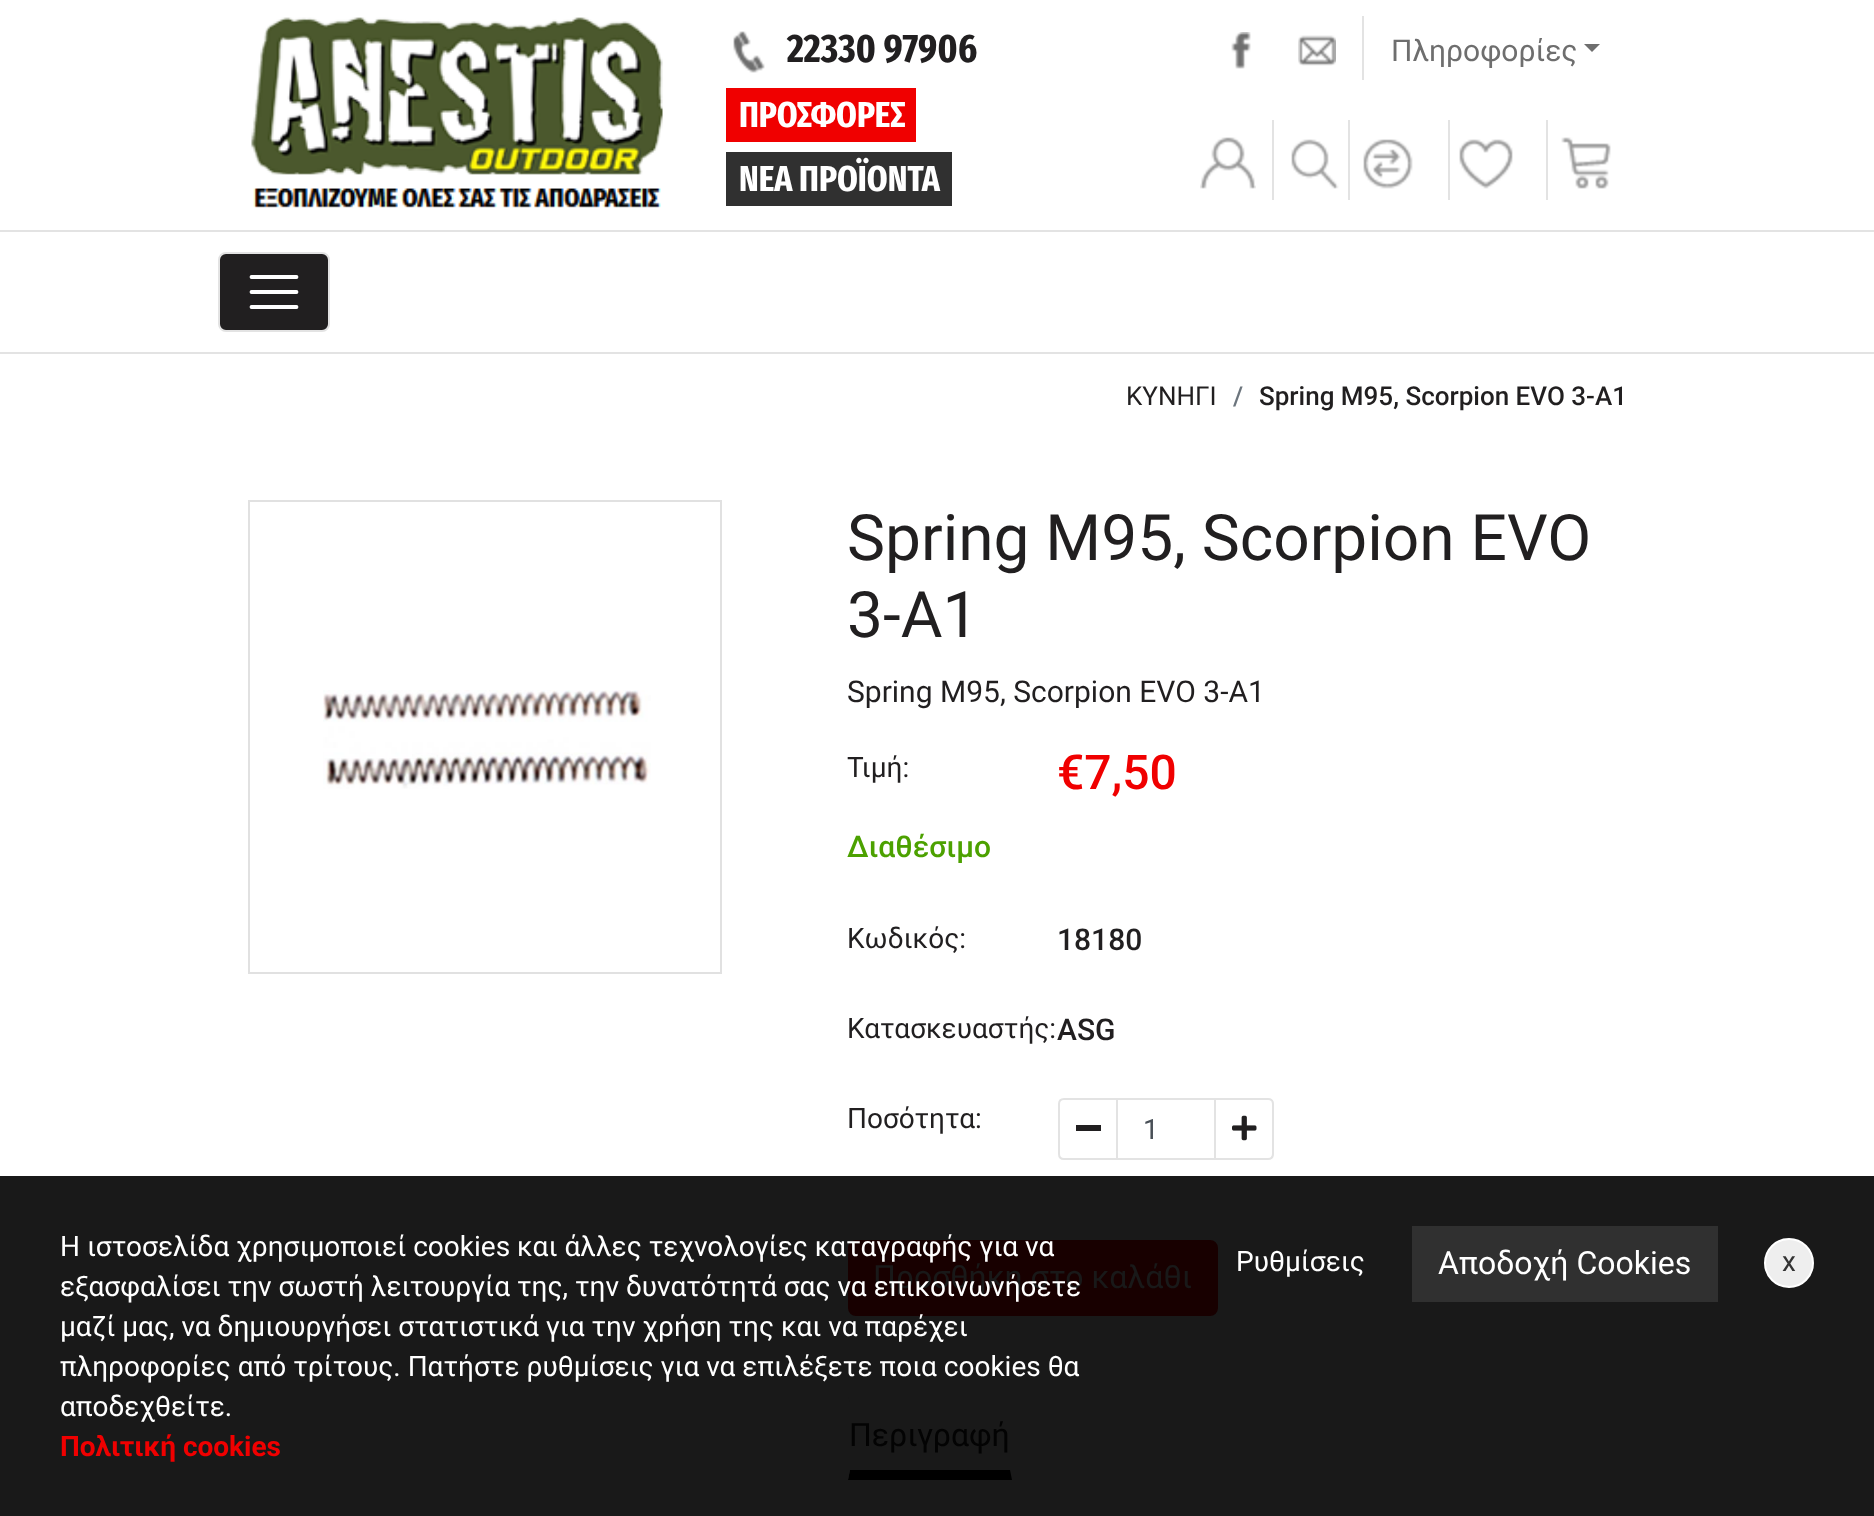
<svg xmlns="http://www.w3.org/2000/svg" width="1874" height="1516">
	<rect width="100%" height="100%" fill="#FFFFFF" />
	<rect x="0" y="1176" width="1874" height="340" fill="#191919" />
	<image x="251" y="17" width="412" height="191" href="assets/img1.png" />
	<image x="733" y="31" width="32" height="42" href="assets/img2.png" />
	<text x="787" y="62" font-family="Fira Sans Extra Condensed" font-size="40" font-weight="700" fill="#211F20">22330 97906</text>
	<rect x="726" y="88" width="190" height="54" fill="#F00000" />
	<text x="739" y="127" font-family="Fira Sans Extra Condensed" font-size="36" font-weight="700" fill="#FFFFFF">ΠΡΟΣΦΟΡΕΣ</text>
	<rect x="726" y="152" width="226" height="54" fill="#303030" />
	<text x="739" y="191" font-family="Fira Sans Extra Condensed" font-size="36" font-weight="700" fill="#FFFFFF">ΝΕΑ ΠΡΟΪΟΝΤΑ</text>
	<image x="1231" y="32" width="20" height="37" href="assets/img3.png" />
	<image x="1298" y="35" width="38" height="31" href="assets/img4.png" />
	<rect x="1362" y="16" width="2" height="64" fill="#E3E3E3" />
	<text x="1391" y="61" font-family="Roboto" font-size="30" fill="#6E6E6E">Πληροφορίες</text>
	<path d="M1584 44H1600L1592 52Z" fill="#6E6E6E" />
	<image x="1200" y="137" width="56" height="52" href="assets/img5.png" />
	<image x="1291" y="139" width="48" height="50" href="assets/img6.png" />
	<rect x="1272" y="120" width="2" height="80" fill="#E3E3E3" />
	<image x="1363" y="139" width="50" height="50" href="assets/img7.png" />
	<rect x="1348" y="120" width="2" height="80" fill="#E3E3E3" />
	<image x="1459" y="139" width="54" height="50" href="assets/img8.png" />
	<rect x="1448" y="120" width="2" height="80" fill="#E3E3E3" />
	<image x="1561" y="137" width="50" height="52" href="assets/img9.png" />
	<rect x="1546" y="120" width="2" height="80" fill="#E3E3E3" />
	<rect x="0" y="230" width="1874" height="2" fill="#E3E3E3" />
	<rect x="0" y="352" width="1874" height="2" fill="#E3E3E3" />
	<rect x="219" y="253" width="110" height="78" rx="7" fill="#211F20" stroke="#E3E3E3" stroke-width="2" />
	<path d="M251.5 277H296.5M251.5 292H296.5M251.5 307H296.5" fill="none" stroke="#FFFFFF" stroke-width="3.8" stroke-linecap="round" />
	<text x="1126" y="405" font-family="Roboto" font-size="26" fill="#211F20">ΚΥΝΗΓΙ</text>
	<text x="1233" y="405" font-family="Roboto" font-size="26" font-weight="500" fill="#6C757D">/</text>
	<text x="1259" y="405" font-family="Roboto" font-size="26" font-weight="500" fill="#211F20">Spring M95, Scorpion EVO 3-A1</text>
	<rect x="249" y="501" width="472" height="472" fill="none" stroke="#E1E1E1" stroke-width="2" />
	<image x="323" y="690" width="328" height="99" href="assets/img10.png" />
	<g font-family="Roboto" font-size="64" fill="#211F20">
		<text x="847" y="560">Spring M95, Scorpion EVO</text>
		<text x="847" y="637">3-A1</text>
	</g>
	<text x="847" y="702" font-family="Roboto" font-size="30" fill="#211F20">Spring M95, Scorpion EVO 3-A1</text>
	<text x="847" y="777" font-family="Roboto" font-size="28" fill="#211F20">Τιμή:</text>
	<text x="1057" y="789" font-family="Roboto" font-size="48" font-weight="500" fill="#F00000">€7,50</text>
	<text x="847" y="857" font-family="Roboto" font-size="30" font-weight="500" fill="#4CA100">Διαθέσιμο</text>
	<text x="847" y="948" font-family="Roboto" font-size="28" fill="#211F20">Κωδικός:</text>
	<text x="1057" y="950" font-family="Roboto" font-size="30" font-weight="500" fill="#211F20">18180</text>
	<text x="847" y="1038" font-family="Roboto" font-size="28" fill="#211F20">Κατασκευαστής:</text>
	<text x="1057" y="1040" font-family="Roboto" font-size="30" font-weight="500" fill="#211F20">ASG</text>
	<text x="847" y="1128" font-family="Roboto" font-size="28" fill="#211F20">Ποσότητα:</text>
	<path d="M1064 1099H1117V1159H1064C1061 1159 1059 1157 1059 1154V1104C1059 1101 1061 1099 1064 1099Z" fill="none" stroke="#E3E3E3" stroke-width="2" />
	<rect x="1076" y="1125" width="25" height="6" fill="#211F20" />
	<path d="M1215 1099H1268C1271 1099 1273 1101 1273 1104V1154C1273 1157 1271 1159 1268 1159H1215Z" fill="none" stroke="#E3E3E3" stroke-width="2" />
	<rect x="1117" y="1099" width="98" height="60" fill="none" stroke="#E3E3E3" stroke-width="2" />
	<text x="1143" y="1139" font-family="Roboto" font-size="28" fill="#495057">1</text>
	<image x="1232" y="1115" width="25" height="26" href="assets/img11.png" />
	<rect x="849" y="1241" width="368" height="74" rx="7" fill="#180000" stroke="#180000" stroke-width="2" />
	<text x="873" y="1288" font-family="Roboto" font-size="32" fill="#191919">Προσθήκη στο καλάθι</text>
	<path d="M1012 1480H848L850 1470H1010Z" fill="#000000" />
	<path d="M848 1480V1396L850 1402V1470Z" fill="#191919" />
	<text x="849" y="1446" font-family="Roboto" font-size="32" fill="#030303">Περιγραφή</text>
	<g font-family="Roboto" font-size="28" fill="#FFFFFF">
		<text x="60" y="1256">Η ιστοσελίδα χρησιμοποιεί cookies και άλλες τεχνολογίες καταγραφής για να</text>
		<text x="60" y="1296">εξασφαλίσει την σωστή λειτουργία της, την δυνατότητά σας να επικοινωνήσετε</text>
		<text x="60" y="1336">μαζί μας, να δημιουργήσει στατιστικά για την χρήση της και να παρέχει</text>
		<text x="60" y="1376">πληροφορίες από τρίτους. Πατήστε ρυθμίσεις για να επιλέξετε ποια cookies θα</text>
		<text x="60" y="1416">αποδεχθείτε.</text>
	</g>
	<text x="60" y="1456" font-family="Roboto" font-size="28" font-weight="700" fill="#F00000">Πολιτική cookies</text>
	<text x="1236" y="1271" font-family="Roboto" font-size="28" fill="#FFFFFF">Ρυθμίσεις</text>
	<rect x="1412" y="1226" width="306" height="76" fill="#303030" />
	<text x="1438" y="1274" font-family="Roboto" font-size="32" fill="#FFFFFF">Αποδοχή Cookies</text>
	<circle cx="1789" cy="1263" r="24" fill="#EEEEEE" stroke="#FFFFFF" stroke-width="2" />
	<text x="1782" y="1271" font-family="Roboto" font-size="28" fill="#333333">x</text>
</svg>
